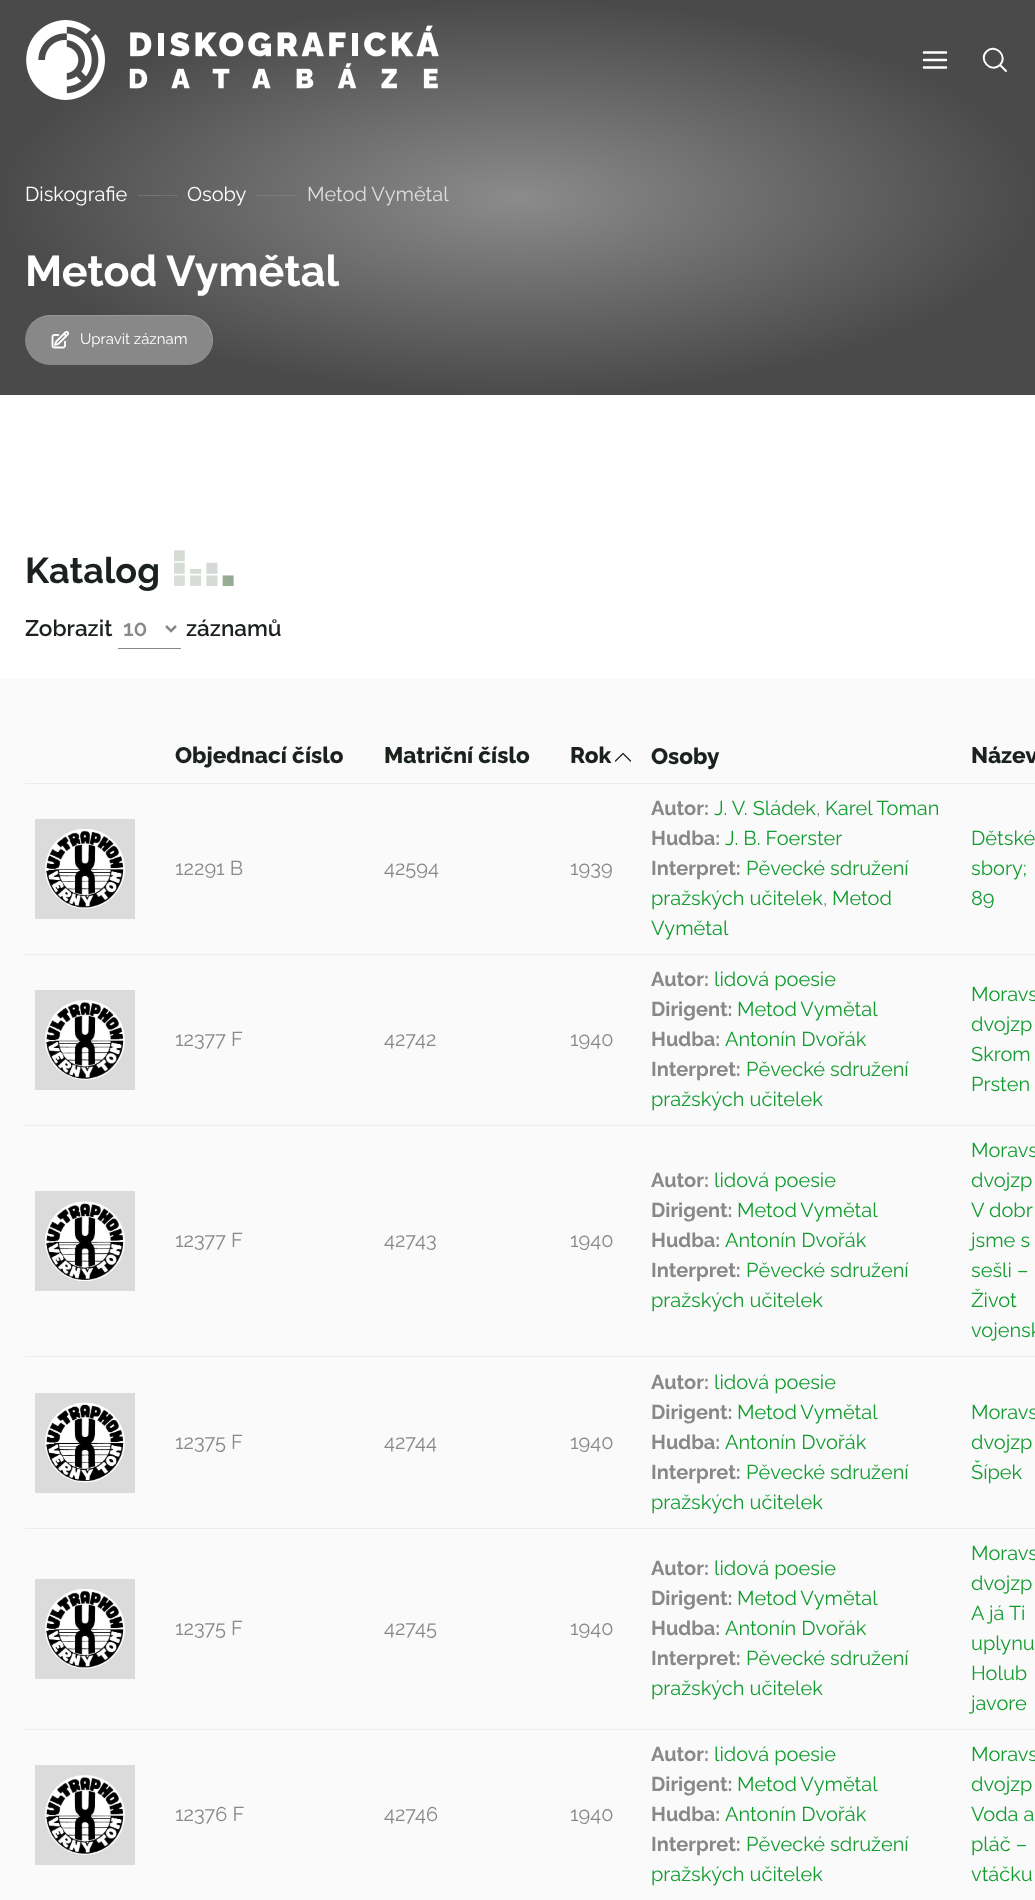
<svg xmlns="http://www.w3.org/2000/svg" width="1035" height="1900">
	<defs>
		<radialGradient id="g1" gradientUnits="userSpaceOnUse" cx="0" cy="0" r="1" gradientTransform="matrix(518 0 0 198 518 198)"><stop offset="0" stop-color="#8B8B8B" /><stop offset="1" stop-color="#4A4A4A" /></radialGradient>
		<radialGradient id="g2" gradientUnits="userSpaceOnUse" cx="0" cy="0" r="1" gradientTransform="matrix(518 0 0 198 518 198)"><stop offset="0" stop-color="#8A8A8A" /><stop offset="1" stop-color="#696969" /></radialGradient>
	</defs>
	<rect width="100%" height="100%" fill="#FFFFFF" />
	<rect x="0" y="0" width="1035" height="395" fill="url(#g1)" />
	<image x="26" y="20" width="413" height="80" href="assets/img1.png" />
	<path d="M924 60H946M924 52.5H946M924 67.5H946" fill="none" stroke="#FFFFFF" stroke-width="2.5" stroke-linecap="round" stroke-linejoin="round" />
	<path d="M1006 71L1000 65M1000 65C1008.5 56 995 43 986.5 51.5C978 60 991 73.5 1000 65Z" fill="none" stroke="#FFFFFF" stroke-width="1.9" stroke-linecap="round" stroke-linejoin="round" />
	<rect x="256" y="195" width="40" height="1" fill="url(#g2)" />
	<rect x="138" y="195" width="40" height="1" fill="url(#g2)" />
	<g font-family="Raleway" font-size="20" fill="#FFFFFF">
		<text x="25" y="201">Diskografie</text>
		<text x="187" y="201">Osoby</text>
	</g>
	<text x="307" y="201" font-family="Raleway" font-size="20" fill="#DEDEDE">Metod Vymětal</text>
	<text x="25" y="286" font-family="Raleway" font-size="43" font-weight="700" fill="#FFFFFF">Metod Vymětal</text>
	<rect x="25" y="315" width="188" height="50" rx="25" fill="#888888" />
	<path d="M50 316H188C201 316 212 327 212 341C212 347 210 352 207 356C211 352 213 346 213 340C213 326 202 315 188 315H50C36 315 25 326 25 340C25 327 36 316 50 316Z" fill="#FFFFFF" fill-opacity="0.15" />
	<image x="51" y="331" width="18" height="18" href="assets/img2.png" />
	<text x="80" y="344" font-family="Raleway" font-size="15" fill="#FFFFFF">Upravit záznam</text>
	<text x="25" y="583" font-family="Raleway" font-size="36" font-weight="700" fill="#1B211C">Katalog</text>
	<image x="174" y="550" width="60" height="36" href="assets/img3.png" />
	<text x="25" y="636" font-family="Raleway" font-size="22.5" font-weight="600" fill="#1B211C">Zobrazit</text>
	<rect x="118" y="648" width="63" height="1" fill="#888888" />
	<path d="M166 626L171 631L176 626" fill="none" stroke="#888888" stroke-width="2.5" />
	<text x="123" y="636" font-family="Raleway" font-size="22.5" font-weight="600" fill="#888888">10</text>
	<text x="186" y="636" font-family="Raleway" font-size="22.5" font-weight="600" fill="#1B211C">záznamů</text>
	<rect x="0" y="679" width="1035" height="1221" fill="#FAFAFA" />
	<g font-family="Raleway" font-size="22.5" font-weight="800" fill="#1B211C">
		<text x="175" y="763">Objednací číslo</text>
		<text x="384" y="763">Matriční číslo</text>
		<text x="570" y="763">Rok</text>
	</g>
	<path d="M630.5 761L623 753.5L615.5 761" fill="none" stroke="#1B211C" stroke-width="1.2" stroke-linecap="round" stroke-linejoin="round" />
	<text x="651" y="764" font-family="Raleway" font-size="22.5" font-weight="800" fill="#1B211C">Osoby</text>
	<rect x="25" y="783" width="1010" height="1" fill="#ECECEC" />
	<text x="971" y="763" font-family="Raleway" font-size="22.5" font-weight="800" fill="#1B211C">Název</text>
	<rect x="35" y="819" width="100" height="100" fill="#DBDBDB" />
	<image x="45" y="829" width="80" height="80" href="assets/img4.png" />
	<g font-family="Raleway" font-size="20" fill="#888888">
		<text x="175" y="875">12291 B</text>
		<text x="384" y="875">42594</text>
		<text x="570" y="875">1939</text>
	</g>
	<text x="651" y="815" font-family="Raleway" font-size="20" font-weight="700" fill="#888888">Autor:</text>
	<text x="714" y="815" font-family="Raleway" font-size="20" fill="#149C31">J. V. Sládek</text>
	<text x="816" y="815" font-family="Raleway" font-size="20" fill="#888888">,</text>
	<text x="825" y="815" font-family="Raleway" font-size="20" fill="#149C31">Karel Toman</text>
	<text x="651" y="845" font-family="Raleway" font-size="20" font-weight="700" fill="#888888">Hudba:</text>
	<text x="725" y="845" font-family="Raleway" font-size="20" fill="#149C31">J. B. Foerster</text>
	<text x="651" y="875" font-family="Raleway" font-size="20" font-weight="700" fill="#888888">Interpret:</text>
	<g font-family="Raleway" font-size="20" fill="#149C31">
		<text x="746" y="875">Pěvecké sdružení</text>
		<text x="651" y="905">pražských učitelek</text>
	</g>
	<text x="823" y="905" font-family="Raleway" font-size="20" fill="#888888">,</text>
	<g font-family="Raleway" font-size="20" fill="#149C31">
		<text x="832" y="905">Metod</text>
		<text x="651" y="935">Vymětal</text>
	</g>
	<rect x="25" y="954" width="1010" height="1" fill="#ECECEC" />
	<g font-family="Raleway" font-size="20" fill="#149C31">
		<text x="971" y="845">Dětské</text>
		<text x="971" y="875">sbory;</text>
		<text x="971" y="905">89</text>
	</g>
	<rect x="35" y="990" width="100" height="100" fill="#DBDBDB" />
	<image x="45" y="1000" width="80" height="80" href="assets/img5.png" />
	<g font-family="Raleway" font-size="20" fill="#888888">
		<text x="175" y="1046">12377 F</text>
		<text x="384" y="1046">42742</text>
		<text x="570" y="1046">1940</text>
	</g>
	<text x="651" y="986" font-family="Raleway" font-size="20" font-weight="700" fill="#888888">Autor:</text>
	<text x="714" y="986" font-family="Raleway" font-size="20" fill="#149C31">lidová poesie</text>
	<text x="651" y="1016" font-family="Raleway" font-size="20" font-weight="700" fill="#888888">Dirigent:</text>
	<text x="737" y="1016" word-spacing="-1" font-family="Raleway" font-size="20" fill="#149C31">Metod Vymětal</text>
	<text x="651" y="1046" font-family="Raleway" font-size="20" font-weight="700" fill="#888888">Hudba:</text>
	<text x="725" y="1046" font-family="Raleway" font-size="20" fill="#149C31">Antonín Dvořák</text>
	<text x="651" y="1076" font-family="Raleway" font-size="20" font-weight="700" fill="#888888">Interpret:</text>
	<g font-family="Raleway" font-size="20" fill="#149C31">
		<text x="746" y="1076">Pěvecké sdružení</text>
		<text x="651" y="1106">pražských učitelek</text>
	</g>
	<rect x="25" y="1125" width="1010" height="1" fill="#ECECEC" />
	<g font-family="Raleway" font-size="20" fill="#149C31">
		<text x="971" y="1001">Moravs</text>
		<text x="971" y="1031">dvojzp</text>
		<text x="971" y="1061">Skrom</text>
		<text x="971" y="1091">Prsten</text>
	</g>
	<rect x="35" y="1191" width="100" height="100" fill="#DBDBDB" />
	<image x="45" y="1201" width="80" height="80" href="assets/img6.png" />
	<g font-family="Raleway" font-size="20" fill="#888888">
		<text x="175" y="1247">12377 F</text>
		<text x="384" y="1247">42743</text>
		<text x="570" y="1247">1940</text>
	</g>
	<text x="651" y="1187" font-family="Raleway" font-size="20" font-weight="700" fill="#888888">Autor:</text>
	<text x="714" y="1187" font-family="Raleway" font-size="20" fill="#149C31">lidová poesie</text>
	<text x="651" y="1217" font-family="Raleway" font-size="20" font-weight="700" fill="#888888">Dirigent:</text>
	<text x="737" y="1217" word-spacing="-1" font-family="Raleway" font-size="20" fill="#149C31">Metod Vymětal</text>
	<text x="651" y="1247" font-family="Raleway" font-size="20" font-weight="700" fill="#888888">Hudba:</text>
	<text x="725" y="1247" font-family="Raleway" font-size="20" fill="#149C31">Antonín Dvořák</text>
	<text x="651" y="1277" font-family="Raleway" font-size="20" font-weight="700" fill="#888888">Interpret:</text>
	<g font-family="Raleway" font-size="20" fill="#149C31">
		<text x="746" y="1277">Pěvecké sdružení</text>
		<text x="651" y="1307">pražských učitelek</text>
	</g>
	<rect x="25" y="1356" width="1010" height="1" fill="#ECECEC" />
	<g font-family="Raleway" font-size="20" fill="#149C31">
		<text x="971" y="1157">Moravs</text>
		<text x="971" y="1187">dvojzp</text>
		<text x="971" y="1217">V dobr</text>
		<text x="971" y="1247">jsme s</text>
		<text x="971" y="1277">sešli –</text>
		<text x="971" y="1307">Život</text>
		<text x="971" y="1337">vojensk</text>
	</g>
	<rect x="35" y="1393" width="100" height="100" fill="#DBDBDB" />
	<image x="45" y="1402" width="80" height="81" href="assets/img7.png" />
	<g font-family="Raleway" font-size="20" fill="#888888">
		<text x="175" y="1449">12375 F</text>
		<text x="384" y="1449">42744</text>
		<text x="570" y="1449">1940</text>
	</g>
	<text x="651" y="1389" font-family="Raleway" font-size="20" font-weight="700" fill="#888888">Autor:</text>
	<text x="714" y="1389" font-family="Raleway" font-size="20" fill="#149C31">lidová poesie</text>
	<text x="651" y="1419" font-family="Raleway" font-size="20" font-weight="700" fill="#888888">Dirigent:</text>
	<text x="737" y="1419" word-spacing="-1" font-family="Raleway" font-size="20" fill="#149C31">Metod Vymětal</text>
	<text x="651" y="1449" font-family="Raleway" font-size="20" font-weight="700" fill="#888888">Hudba:</text>
	<text x="725" y="1449" font-family="Raleway" font-size="20" fill="#149C31">Antonín Dvořák</text>
	<text x="651" y="1479" font-family="Raleway" font-size="20" font-weight="700" fill="#888888">Interpret:</text>
	<g font-family="Raleway" font-size="20" fill="#149C31">
		<text x="746" y="1479">Pěvecké sdružení</text>
		<text x="651" y="1509">pražských učitelek</text>
	</g>
	<rect x="25" y="1528" width="1010" height="1" fill="#ECECEC" />
	<g font-family="Raleway" font-size="20" fill="#149C31">
		<text x="971" y="1419">Moravs</text>
		<text x="971" y="1449">dvojzp</text>
		<text x="971" y="1479">Šípek</text>
	</g>
	<rect x="35" y="1579" width="100" height="100" fill="#DBDBDB" />
	<image x="45" y="1589" width="80" height="80" href="assets/img4.png" />
	<g font-family="Raleway" font-size="20" fill="#888888">
		<text x="175" y="1635">12375 F</text>
		<text x="384" y="1635">42745</text>
		<text x="570" y="1635">1940</text>
	</g>
	<text x="651" y="1575" font-family="Raleway" font-size="20" font-weight="700" fill="#888888">Autor:</text>
	<text x="714" y="1575" font-family="Raleway" font-size="20" fill="#149C31">lidová poesie</text>
	<text x="651" y="1605" font-family="Raleway" font-size="20" font-weight="700" fill="#888888">Dirigent:</text>
	<text x="737" y="1605" word-spacing="-1" font-family="Raleway" font-size="20" fill="#149C31">Metod Vymětal</text>
	<text x="651" y="1635" font-family="Raleway" font-size="20" font-weight="700" fill="#888888">Hudba:</text>
	<text x="725" y="1635" font-family="Raleway" font-size="20" fill="#149C31">Antonín Dvořák</text>
	<text x="651" y="1665" font-family="Raleway" font-size="20" font-weight="700" fill="#888888">Interpret:</text>
	<g font-family="Raleway" font-size="20" fill="#149C31">
		<text x="746" y="1665">Pěvecké sdružení</text>
		<text x="651" y="1695">pražských učitelek</text>
	</g>
	<rect x="25" y="1729" width="1010" height="1" fill="#ECECEC" />
	<g font-family="Raleway" font-size="20" fill="#149C31">
		<text x="971" y="1560">Moravs</text>
		<text x="971" y="1590">dvojzp</text>
		<text x="971" y="1620">A já Ti</text>
		<text x="971" y="1650">uplynu</text>
		<text x="971" y="1680">Holub</text>
		<text x="971" y="1710">javore</text>
	</g>
	<rect x="35" y="1765" width="100" height="100" fill="#DBDBDB" />
	<image x="45" y="1775" width="80" height="80" href="assets/img8.png" />
	<g font-family="Raleway" font-size="20" fill="#888888">
		<text x="175" y="1821">12376 F</text>
		<text x="384" y="1821">42746</text>
		<text x="570" y="1821">1940</text>
	</g>
	<text x="651" y="1761" font-family="Raleway" font-size="20" font-weight="700" fill="#888888">Autor:</text>
	<text x="714" y="1761" font-family="Raleway" font-size="20" fill="#149C31">lidová poesie</text>
	<text x="651" y="1791" font-family="Raleway" font-size="20" font-weight="700" fill="#888888">Dirigent:</text>
	<text x="737" y="1791" word-spacing="-1" font-family="Raleway" font-size="20" fill="#149C31">Metod Vymětal</text>
	<text x="651" y="1821" font-family="Raleway" font-size="20" font-weight="700" fill="#888888">Hudba:</text>
	<text x="725" y="1821" font-family="Raleway" font-size="20" fill="#149C31">Antonín Dvořák</text>
	<text x="651" y="1851" font-family="Raleway" font-size="20" font-weight="700" fill="#888888">Interpret:</text>
	<g font-family="Raleway" font-size="20" fill="#149C31">
		<text x="746" y="1851">Pěvecké sdružení</text>
		<text x="651" y="1881">pražských učitelek</text>
		<text x="971" y="1761">Moravs</text>
		<text x="971" y="1791">dvojzp</text>
		<text x="971" y="1821">Voda a</text>
		<text x="971" y="1851">pláč –</text>
		<text x="971" y="1881">vtáčku</text>
	</g>
</svg>
